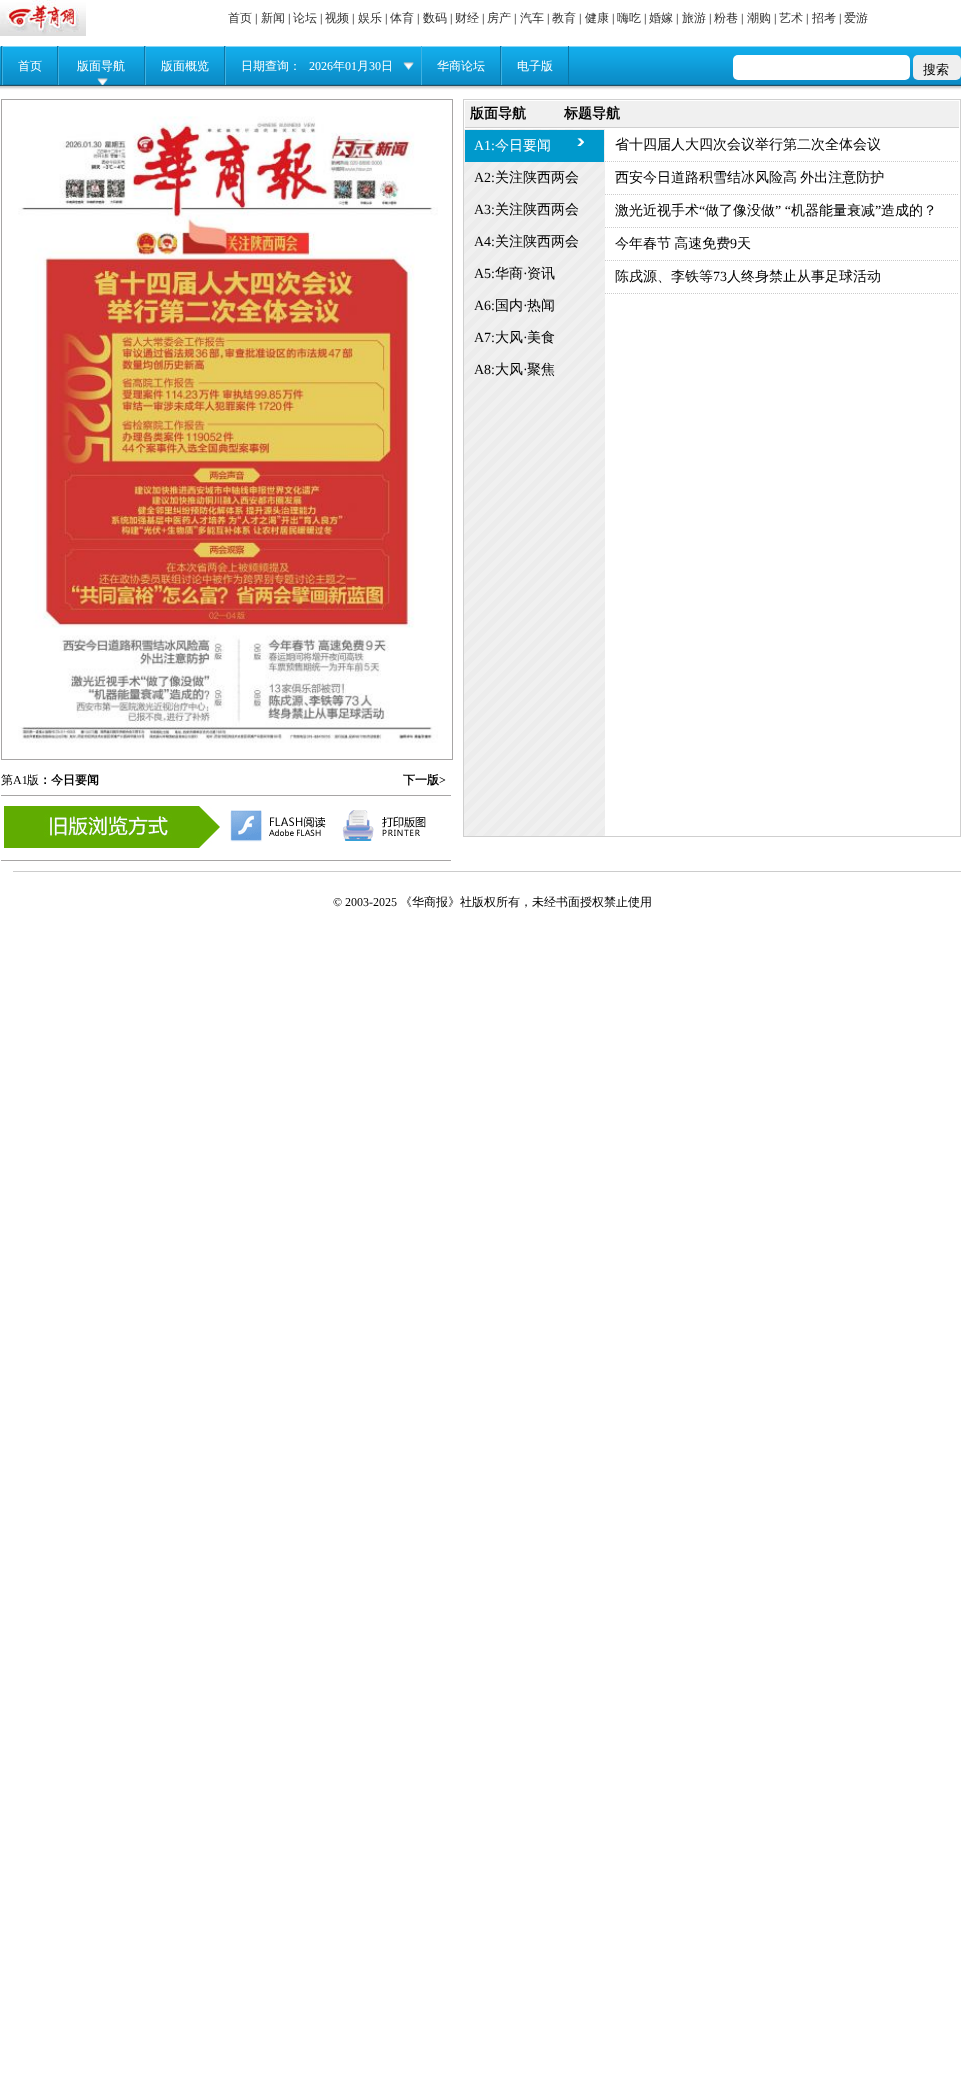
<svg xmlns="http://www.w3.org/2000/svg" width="961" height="2082">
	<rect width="100%" height="100%" fill="#FFFFFF" />
	<image x="0" y="0" width="86" height="36" href="assets/img1.png" />
	<text x="228" y="22" font-family="WenQuanYi Zen Hei" font-size="12" font-weight="500" fill="#333333">首页</text>
	<text x="255" y="22" font-family="Liberation Serif" font-size="12" fill="#000000">|</text>
	<text x="261" y="22" font-family="WenQuanYi Zen Hei" font-size="12" font-weight="500" fill="#333333">新闻</text>
	<text x="288" y="22" font-family="Liberation Serif" font-size="12" fill="#000000">|</text>
	<text x="293" y="22" font-family="WenQuanYi Zen Hei" font-size="12" font-weight="500" fill="#333333">论坛</text>
	<text x="320" y="22" font-family="Liberation Serif" font-size="12" fill="#000000">|</text>
	<text x="325" y="22" font-family="WenQuanYi Zen Hei" font-size="12" font-weight="500" fill="#333333">视频</text>
	<text x="352" y="22" font-family="Liberation Serif" font-size="12" fill="#000000">|</text>
	<text x="358" y="22" font-family="WenQuanYi Zen Hei" font-size="12" font-weight="500" fill="#333333">娱乐</text>
	<text x="385" y="22" font-family="Liberation Serif" font-size="12" fill="#000000">|</text>
	<text x="390" y="22" font-family="WenQuanYi Zen Hei" font-size="12" font-weight="500" fill="#333333">体育</text>
	<text x="417" y="22" font-family="Liberation Serif" font-size="12" fill="#000000">|</text>
	<text x="423" y="22" font-family="WenQuanYi Zen Hei" font-size="12" font-weight="500" fill="#333333">数码</text>
	<text x="450" y="22" font-family="Liberation Serif" font-size="12" fill="#000000">|</text>
	<text x="455" y="22" font-family="WenQuanYi Zen Hei" font-size="12" font-weight="500" fill="#333333">财经</text>
	<text x="482" y="22" font-family="Liberation Serif" font-size="12" fill="#000000">|</text>
	<text x="487" y="22" font-family="WenQuanYi Zen Hei" font-size="12" font-weight="500" fill="#333333">房产</text>
	<text x="514" y="22" font-family="Liberation Serif" font-size="12" fill="#000000">|</text>
	<text x="520" y="22" font-family="WenQuanYi Zen Hei" font-size="12" font-weight="500" fill="#333333">汽车</text>
	<text x="547" y="22" font-family="Liberation Serif" font-size="12" fill="#000000">|</text>
	<text x="552" y="22" font-family="WenQuanYi Zen Hei" font-size="12" font-weight="500" fill="#333333">教育</text>
	<text x="579" y="22" font-family="Liberation Serif" font-size="12" fill="#000000">|</text>
	<text x="585" y="22" font-family="WenQuanYi Zen Hei" font-size="12" font-weight="500" fill="#333333">健康</text>
	<text x="612" y="22" font-family="Liberation Serif" font-size="12" fill="#000000">|</text>
	<text x="617" y="22" font-family="WenQuanYi Zen Hei" font-size="12" font-weight="500" fill="#333333">嗨吃</text>
	<text x="644" y="22" font-family="Liberation Serif" font-size="12" fill="#000000">|</text>
	<text x="649" y="22" font-family="WenQuanYi Zen Hei" font-size="12" font-weight="500" fill="#333333">婚嫁</text>
	<text x="676" y="22" font-family="Liberation Serif" font-size="12" fill="#000000">|</text>
	<text x="682" y="22" font-family="WenQuanYi Zen Hei" font-size="12" font-weight="500" fill="#333333">旅游</text>
	<text x="709" y="22" font-family="Liberation Serif" font-size="12" fill="#000000">|</text>
	<text x="714" y="22" font-family="WenQuanYi Zen Hei" font-size="12" font-weight="500" fill="#333333">粉巷</text>
	<text x="741" y="22" font-family="Liberation Serif" font-size="12" fill="#000000">|</text>
	<text x="747" y="22" font-family="WenQuanYi Zen Hei" font-size="12" font-weight="500" fill="#333333">潮购</text>
	<text x="774" y="22" font-family="Liberation Serif" font-size="12" fill="#000000">|</text>
	<text x="779" y="22" font-family="WenQuanYi Zen Hei" font-size="12" font-weight="500" fill="#333333">艺术</text>
	<text x="806" y="22" font-family="Liberation Serif" font-size="12" fill="#000000">|</text>
	<text x="812" y="22" font-family="WenQuanYi Zen Hei" font-size="12" font-weight="500" fill="#333333">招考</text>
	<text x="839" y="22" font-family="Liberation Serif" font-size="12" fill="#000000">|</text>
	<text x="844" y="22" font-family="WenQuanYi Zen Hei" font-size="12" font-weight="500" fill="#333333">爱游</text>
	<image x="0" y="46" width="961" height="44" href="assets/img2.png" />
	<rect x="1" y="46" width="1" height="39" fill="#0A76A6" />
	<rect x="57" y="46" width="1" height="39" fill="#0A76A6" />
	<rect x="2" y="46" width="1" height="39" fill="#3FB1E1" />
	<text x="18" y="70" font-family="WenQuanYi Zen Hei" font-size="12" font-weight="500" fill="#FFFFFF">首页</text>
	<image x="97" y="46" width="47" height="39" href="assets/img3.png" />
	<rect x="144" y="46" width="1" height="39" fill="#0A76A6" />
	<rect x="58" y="46" width="1" height="39" fill="#3FB1E1" />
	<text x="77" y="70" font-family="WenQuanYi Zen Hei" font-size="12" font-weight="500" fill="#FFFFFF">版面导航</text>
	<rect x="224" y="46" width="1" height="39" fill="#0A76A6" />
	<rect x="145" y="46" width="1" height="39" fill="#3FB1E1" />
	<text x="161" y="70" font-family="WenQuanYi Zen Hei" font-size="12" font-weight="500" fill="#FFFFFF">版面概览</text>
	<rect x="225" y="46" width="1" height="39" fill="#3FB1E1" />
	<text x="241" y="70" font-family="WenQuanYi Zen Hei" font-size="12" font-weight="500" fill="#FFFFFF">日期查询：</text>
	<image x="403" y="62" width="11" height="8" href="assets/img4.png" />
	<text x="309" y="70" font-family="Liberation Serif" font-size="12" fill="#FFFFFF">2026</text>
	<text x="333" y="70" font-family="WenQuanYi Zen Hei" font-size="12" font-weight="500" fill="#FFFFFF">年</text>
	<text x="345" y="70" font-family="Liberation Serif" font-size="12" fill="#FFFFFF">01</text>
	<text x="357" y="70" font-family="WenQuanYi Zen Hei" font-size="12" font-weight="500" fill="#FFFFFF">月</text>
	<text x="369" y="70" font-family="Liberation Serif" font-size="12" fill="#FFFFFF">30</text>
	<text x="381" y="70" font-family="WenQuanYi Zen Hei" font-size="12" font-weight="500" fill="#FFFFFF">日</text>
	<rect x="500" y="46" width="1" height="39" fill="#0A76A6" />
	<rect x="421" y="46" width="1" height="39" fill="#3FB1E1" />
	<text x="437" y="70" font-family="WenQuanYi Zen Hei" font-size="12" font-weight="500" fill="#FFFFFF">华商论坛</text>
	<rect x="568" y="46" width="1" height="39" fill="#0A76A6" />
	<rect x="501" y="46" width="1" height="39" fill="#3FB1E1" />
	<text x="517" y="70" font-family="WenQuanYi Zen Hei" font-size="12" font-weight="500" fill="#FFFFFF">电子版</text>
	<rect x="733" y="55" width="177" height="25" rx="5" fill="#FFFFFF" />
	<rect x="913" y="55" width="48" height="25" rx="5" fill="#EFEFEF" />
	<text x="923" y="74" font-family="WenQuanYi Zen Hei" font-size="13" font-weight="500" fill="#000000">搜索</text>
	<rect x="463.5" y="99.5" width="497" height="737" fill="none" stroke="#CFCFCF" />
	<rect x="465" y="101" width="494" height="26" fill="#F0F0F0" />
	<rect x="465" y="127" width="494" height="1" fill="#CFCFCF" />
	<g font-family="WenQuanYi Zen Hei" font-size="14" font-weight="700" fill="#000000">
		<text x="470" y="118">版面导航</text>
		<text x="564" y="118">标题导航</text>
	</g>
	<image x="464" y="129" width="141" height="707" href="assets/img5.png" />
	<rect x="465" y="130" width="139" height="32" fill="#0099CC" />
	<image x="577" y="138" width="7" height="8" href="assets/img6.png" />
	<text x="474" y="150" font-family="Liberation Serif" font-size="14" fill="#FFFFFF">A1:</text>
	<text x="495" y="150" font-family="WenQuanYi Zen Hei" font-size="14" font-weight="500" fill="#FFFFFF">今日要闻</text>
	<text x="474" y="182" font-family="Liberation Serif" font-size="14" fill="#000000">A2:</text>
	<text x="495" y="182" font-family="WenQuanYi Zen Hei" font-size="14" font-weight="500" fill="#000000">关注陕西两会</text>
	<text x="474" y="214" font-family="Liberation Serif" font-size="14" fill="#000000">A3:</text>
	<text x="495" y="214" font-family="WenQuanYi Zen Hei" font-size="14" font-weight="500" fill="#000000">关注陕西两会</text>
	<text x="474" y="246" font-family="Liberation Serif" font-size="14" fill="#000000">A4:</text>
	<text x="495" y="246" font-family="WenQuanYi Zen Hei" font-size="14" font-weight="500" fill="#000000">关注陕西两会</text>
	<text x="474" y="278" font-family="Liberation Serif" font-size="14" fill="#000000">A5:</text>
	<text x="495" y="278" font-family="WenQuanYi Zen Hei" font-size="14" font-weight="500" fill="#000000">华商</text>
	<text x="523" y="278" font-family="Liberation Serif" font-size="14" fill="#000000">·</text>
	<text x="527" y="278" font-family="WenQuanYi Zen Hei" font-size="14" font-weight="500" fill="#000000">资讯</text>
	<text x="474" y="310" font-family="Liberation Serif" font-size="14" fill="#000000">A6:</text>
	<text x="495" y="310" font-family="WenQuanYi Zen Hei" font-size="14" font-weight="500" fill="#000000">国内</text>
	<text x="523" y="310" font-family="Liberation Serif" font-size="14" fill="#000000">·</text>
	<text x="527" y="310" font-family="WenQuanYi Zen Hei" font-size="14" font-weight="500" fill="#000000">热闻</text>
	<text x="474" y="342" font-family="Liberation Serif" font-size="14" fill="#000000">A7:</text>
	<text x="495" y="342" font-family="WenQuanYi Zen Hei" font-size="14" font-weight="500" fill="#000000">大风</text>
	<text x="523" y="342" font-family="Liberation Serif" font-size="14" fill="#000000">·</text>
	<text x="527" y="342" font-family="WenQuanYi Zen Hei" font-size="14" font-weight="500" fill="#000000">美食</text>
	<text x="474" y="374" font-family="Liberation Serif" font-size="14" fill="#000000">A8:</text>
	<text x="495" y="374" font-family="WenQuanYi Zen Hei" font-size="14" font-weight="500" fill="#000000">大风</text>
	<text x="523" y="374" font-family="Liberation Serif" font-size="14" fill="#000000">·</text>
	<text x="527" y="374" font-family="WenQuanYi Zen Hei" font-size="14" font-weight="500" fill="#000000">聚焦</text>
	<path d="M605 161.5H959" fill="none" stroke="#CCCCCC" stroke-dasharray="1 1" />
	<text x="615" y="149" font-family="WenQuanYi Zen Hei" font-size="14" font-weight="500" fill="#000000">省十四届人大四次会议举行第二次全体会议</text>
	<path d="M605 194.5H959" fill="none" stroke="#CCCCCC" stroke-dasharray="1 1" />
	<text x="615" y="182" word-spacing="-1" font-family="WenQuanYi Zen Hei" font-size="14" font-weight="500" fill="#000000">西安今日道路积雪结冰风险高 外出注意防护</text>
	<path d="M605 227.5H959" fill="none" stroke="#CCCCCC" stroke-dasharray="1 1" />
	<text x="615" y="215" font-family="WenQuanYi Zen Hei" font-size="14" font-weight="500" fill="#000000">激光近视手术</text>
	<text x="699" y="215" font-family="Liberation Serif" font-size="14" fill="#000000">“</text>
	<text x="705" y="215" font-family="WenQuanYi Zen Hei" font-size="14" font-weight="500" fill="#000000">做了像没做</text>
	<text x="775" y="215" font-family="Liberation Serif" font-size="14" fill="#000000">” “</text>
	<text x="791" y="215" font-family="WenQuanYi Zen Hei" font-size="14" font-weight="500" fill="#000000">机器能量衰减</text>
	<text x="875" y="215" font-family="Liberation Serif" font-size="14" fill="#000000">”</text>
	<text x="881" y="215" font-family="WenQuanYi Zen Hei" font-size="14" font-weight="500" fill="#000000">造成的？</text>
	<path d="M605 260.5H959" fill="none" stroke="#CCCCCC" stroke-dasharray="1 1" />
	<text x="615" y="248" word-spacing="-1" font-family="WenQuanYi Zen Hei" font-size="14" font-weight="500" fill="#000000">今年春节 高速免费</text>
	<text x="730" y="248" font-family="Liberation Serif" font-size="14" fill="#000000">9</text>
	<text x="737" y="248" font-family="WenQuanYi Zen Hei" font-size="14" font-weight="500" fill="#000000">天</text>
	<path d="M605 293.5H959" fill="none" stroke="#CCCCCC" stroke-dasharray="1 1" />
	<text x="615" y="281" font-family="WenQuanYi Zen Hei" font-size="14" font-weight="500" fill="#000000">陈戌源、李铁等</text>
	<text x="713" y="281" font-family="Liberation Serif" font-size="14" fill="#000000">73</text>
	<text x="727" y="281" font-family="WenQuanYi Zen Hei" font-size="14" font-weight="500" fill="#000000">人终身禁止从事足球活动</text>
	<rect x="1.5" y="99.5" width="451" height="660" fill="none" stroke="#A7A5A5" />
	<image x="18" y="116" width="420" height="627" href="assets/img7.png" />
	<rect x="1" y="795" width="450" height="1" fill="#A7A5A5" />
	<text x="1" y="784" font-family="WenQuanYi Zen Hei" font-size="12" font-weight="500" fill="#000000">第</text>
	<text x="13" y="784" font-family="Liberation Serif" font-size="12" fill="#000000">A1</text>
	<text x="27" y="784" font-family="WenQuanYi Zen Hei" font-size="12" font-weight="500" fill="#000000">版</text>
	<g font-family="WenQuanYi Zen Hei" font-size="12" font-weight="700" fill="#000000">
		<text x="39" y="784">：今日要闻</text>
		<text x="403" y="784">下一版</text>
	</g>
	<text x="439" y="784" font-family="Liberation Serif" font-size="12" font-weight="700" fill="#000000">&gt;</text>
	<rect x="1" y="860" width="450" height="1" fill="#A7A5A5" />
	<image x="4" y="806" width="216" height="42" href="assets/img8.png" />
	<image x="230" y="810" width="96" height="32" href="assets/img9.png" />
	<image x="342" y="810" width="84" height="31" href="assets/img10.png" />
	<rect x="13" y="871" width="948" height="1" fill="#CCCCCC" />
	<text x="333" y="906" font-family="Liberation Serif" font-size="12" fill="#000000">© 2003-2025</text>
	<text x="400" y="906" font-family="WenQuanYi Zen Hei" font-size="12" font-weight="500" fill="#000000">《华商报》社版权所有，未经书面授权禁止使用</text>
</svg>
